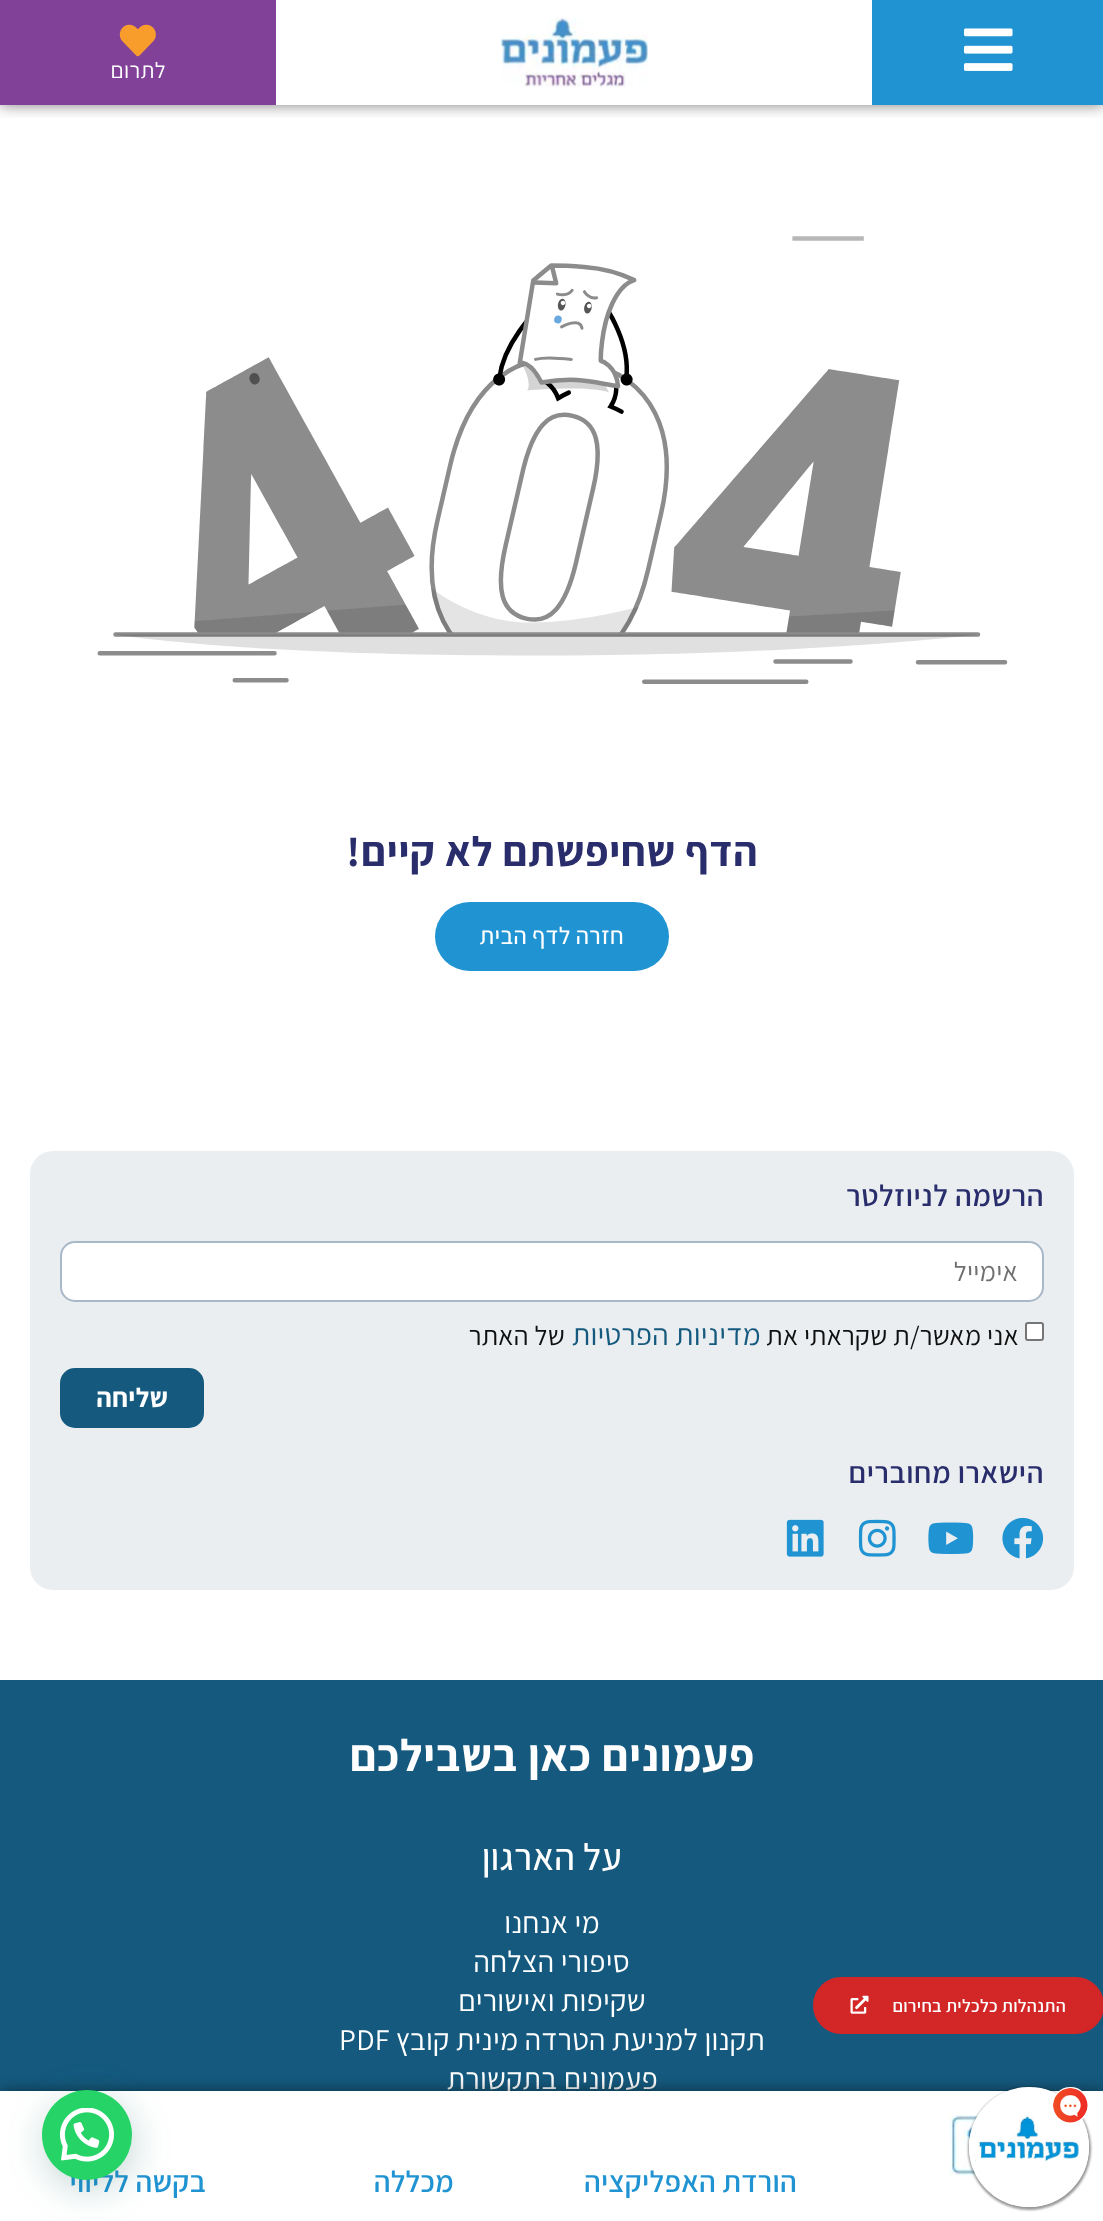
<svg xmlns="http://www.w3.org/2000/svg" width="1103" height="2221">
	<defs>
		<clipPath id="clip1"><rect x="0" y="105" width="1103" height="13" /></clipPath>
		<clipPath id="clip2"><path d="M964 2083H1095V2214H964ZM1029 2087C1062 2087 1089 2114 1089 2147C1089 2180 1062 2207 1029 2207C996 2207 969 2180 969 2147C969 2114 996 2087 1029 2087Z" clip-rule="evenodd" /></clipPath>
	</defs>
	<rect width="100%" height="100%" fill="#FFFFFF" />
	<g clip-path="url(#clip1)">
		<rect x="0" y="0" width="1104" height="105" fill="#000000" fill-opacity="0.5" filter="blur(7.5px)" />
	</g>
	<rect x="872" y="0" width="231" height="105" fill="#2093D2" />
	<image x="963" y="28" width="50" height="43" href="assets/img1.png" />
	<image x="500" y="17" width="148" height="71" href="assets/img2.png" />
	<rect x="0" y="0" width="276" height="105" fill="#824199" />
	<image x="119" y="24" width="37" height="33" href="assets/img3.png" />
	<text x="166" y="78" font-family="Assistant" font-size="22.5" letter-spacing="0.5" direction="rtl" fill="#FFFFFF">לתרום</text>
	<image x="97" y="236" width="911" height="448" href="assets/img4.png" />
	<text x="758" y="866" font-family="Assistant" font-size="42" font-weight="700" letter-spacing="0.8" direction="rtl" fill="#292D6B">הדף שחיפשתם לא קיים!</text>
	<rect x="435" y="902" width="234" height="69" rx="34.5" fill="#2093D2" />
	<text x="624" y="944" font-family="Assistant" font-size="24" font-weight="500" letter-spacing="0.3" direction="rtl" fill="#FFFFFF">חזרה לדף הבית</text>
	<rect x="30" y="1151" width="1044" height="439" rx="23" fill="#EAEEF1" />
	<text x="1044" y="1206" font-family="Assistant" font-size="30" font-weight="600" letter-spacing="0.6" direction="rtl" fill="#292D6B">הרשמה לניוזלטר</text>
	<rect x="61" y="1242" width="982" height="59" rx="14" fill="#FFFFFF" stroke="#A8B8C8" stroke-width="2" />
	<text x="1018" y="1281" font-family="Assistant" font-size="27" letter-spacing="0.3" direction="rtl" fill="#707070">אימייל</text>
	<rect x="1026" y="1323" width="17" height="17" rx="2" fill="#FFFFFF" stroke="#767676" stroke-width="2" />
	<text x="1019" y="1345" font-family="Assistant" font-size="27" letter-spacing="0.3" direction="rtl" fill="#101010">אני מאשר/ת שקראתי את</text>
	<text x="761" y="1345" font-family="Assistant" font-size="30" letter-spacing="0.3" direction="rtl" fill="#155A7E">מדיניות הפרטיות</text>
	<text x="565" y="1345" font-family="Assistant" font-size="27" letter-spacing="0.3" direction="rtl" fill="#101010">של האתר</text>
	<rect x="60" y="1368" width="144" height="60" rx="15" fill="#155A7E" />
	<text x="168" y="1407" font-family="Assistant" font-size="27" font-weight="700" letter-spacing="0.3" direction="rtl" fill="#FFFFFF">שליחה</text>
	<text x="1044" y="1483" font-family="Assistant" font-size="30" font-weight="600" letter-spacing="0.6" direction="rtl" fill="#292D6B">הישארו מחוברים</text>
	<image x="1002" y="1517" width="42" height="42" href="assets/img5.png" />
	<image x="928" y="1522" width="46" height="32" href="assets/img6.png" />
	<image x="858" y="1519" width="38" height="38" href="assets/img7.png" />
	<image x="786" y="1519" width="38" height="38" href="assets/img8.png" />
	<rect x="0" y="1680" width="1103" height="411" fill="#155A7E" />
	<rect x="814" y="1978" width="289" height="55" rx="27.5" fill="#D32627" stroke="#D32627" stroke-width="2" />
	<text x="1066" y="2012" font-family="Assistant" font-size="18" font-weight="600" letter-spacing="0.3" direction="rtl" fill="#FFFFFF">התנהלות כלכלית בחירום</text>
	<image x="850" y="1995" width="19" height="19" href="assets/img9.png" />
	<text x="755" y="1771" font-family="Assistant" font-size="45" font-weight="700" letter-spacing="0.9" direction="rtl" fill="#FFFFFF">פעמונים כאן בשבילכם</text>
	<text x="622" y="1870" font-family="Assistant" font-size="37.5" font-weight="500" letter-spacing="0.3" direction="rtl" fill="#FFFFFF">על הארגון</text>
	<g font-family="Assistant" font-size="30" letter-spacing="0.3" direction="rtl" fill="#FFFFFF">
		<text x="600" y="1933">מי אנחנו</text>
		<text x="630" y="1972">סיפורי הצלחה</text>
		<text x="646" y="2011">שקיפות ואישורים</text>
		<text x="765" y="2050">תקנון למניעת הטרדה מינית קובץ</text>
	</g>
	<text x="339" y="2050" font-family="Assistant" font-size="30" letter-spacing="0.3" fill="#FFFFFF">PDF</text>
	<text x="658" y="2089" font-family="Assistant" font-size="30" letter-spacing="0.3" direction="rtl" fill="#FFFFFF">פעמונים בתקשורת</text>
	<rect x="0" y="2091" width="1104" height="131" fill="#000000" fill-opacity="0.5" filter="blur(7.5px)" />
	<rect x="0" y="2091" width="1103" height="130" fill="#FFFFFF" />
	<image x="949" y="2115" width="35" height="60" href="assets/img10.png" />
	<g font-family="Assistant" font-size="30" font-weight="600" letter-spacing="0.3" direction="rtl" fill="#2093D2">
		<text x="797" y="2192">הורדת האפליקציה</text>
		<text x="454" y="2192">מכללה</text>
		<text x="206" y="2192">בקשה לליווי</text>
	</g>
	<g clip-path="url(#clip2)">
		<rect x="968" y="2087" width="123" height="123" rx="61.5" fill="#000000" fill-opacity="0.4" filter="blur(1px)" />
	</g>
	<circle cx="1029" cy="2147" r="57.5" fill="none" stroke="#FFFFFF" stroke-width="5" />
	<image x="974" y="2115" width="105" height="77" href="assets/img11.png" />
	<circle cx="1070.5" cy="2105.5" r="17.5" fill="none" stroke="#FFFFFF" stroke-width="2" />
	<image x="1053" y="2088" width="35" height="35" href="assets/img12.png" />
	<rect x="44" y="2099" width="90" height="90" rx="45" fill="#075E54" fill-opacity="0.24" filter="blur(18px)" />
	<circle cx="87" cy="2135" r="45" fill="#25D366" />
	<image x="60" y="2108" width="54" height="54" href="assets/img13.png" />
</svg>
